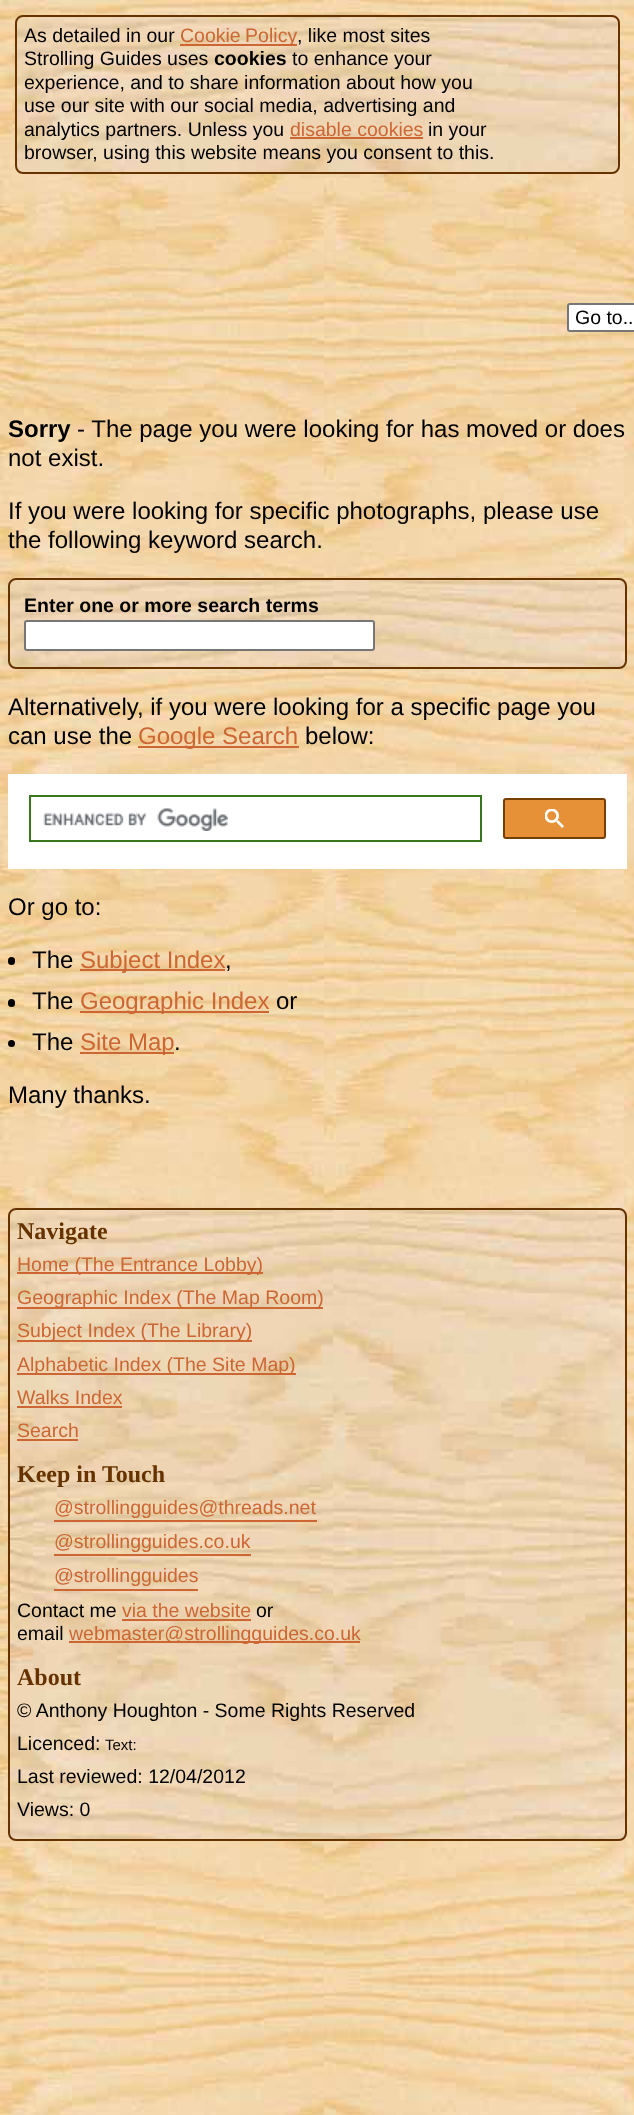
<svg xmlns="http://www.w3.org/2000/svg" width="634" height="2115">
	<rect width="100%" height="100%" fill="#FFFFFF" />
	<image x="0" y="0" width="634" height="2115" href="assets/img1.png" />
	<image x="15" y="15" width="605" height="159" href="assets/img2.png" />
	<rect x="16" y="16" width="603" height="157" rx="7" fill="none" stroke="#663300" stroke-width="2" />
	<text x="24" y="42" font-family="Liberation Sans" font-size="19.5" fill="#000000">As detailed in our</text>
	<rect x="180" y="44" width="117" height="2" fill="#CC6633" />
	<text x="180" y="42" word-spacing="-1" font-family="Liberation Sans" font-size="19.5" fill="#CC6633">Cookie Policy</text>
	<g font-family="Liberation Sans" font-size="19.5" fill="#000000">
		<text x="297" y="42">, like most sites</text>
		<text x="24" y="65">Strolling Guides uses</text>
	</g>
	<text x="214" y="65" font-family="Liberation Sans" font-size="19.5" font-weight="700" fill="#000000">cookies</text>
	<g font-family="Liberation Sans" font-size="19.5" fill="#000000">
		<text x="292" y="65">to enhance your</text>
		<text x="24" y="89">experience, and to share information about how you</text>
		<text x="24" y="112">use our site with our social media, advertising and</text>
		<text x="24" y="136">analytics partners. Unless you</text>
	</g>
	<text x="290" y="136" font-family="Liberation Sans" font-size="19.5" fill="#CC6633">disable cookies</text>
	<rect x="290" y="137" width="133" height="2" fill="#CC6633" />
	<g font-family="Liberation Sans" font-size="19.5" fill="#000000">
		<text x="428" y="136">in your</text>
		<text x="24" y="159">browser, using this website means you consent to this.</text>
	</g>
	<rect x="568" y="304" width="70" height="27" rx="2" fill="#FFFFFF" stroke="#767676" stroke-width="2" />
	<text x="575" y="324" font-family="Liberation Sans" font-size="19.5" fill="#000000">Go to..</text>
	<text x="8" y="437" font-family="Liberation Sans" font-size="24" font-weight="700" fill="#000000">Sorry</text>
	<g font-family="Liberation Sans" font-size="24" fill="#000000">
		<text x="77" y="437">- The page you were looking for has moved or does</text>
		<text x="8" y="466">not exist.</text>
		<text x="8" y="519">If you were looking for specific photographs, please use</text>
		<text x="8" y="548">the following keyword search.</text>
	</g>
	<image x="7" y="577" width="620" height="92" href="assets/img3.png" />
	<rect x="9" y="579" width="617" height="89" rx="7" fill="none" stroke="#663300" stroke-width="2" />
	<text x="24" y="612" font-family="Liberation Sans" font-size="19.5" font-weight="700" fill="#000000">Enter one or more search terms</text>
	<rect x="25" y="621" width="349" height="29" rx="2" fill="#FFFFFF" stroke="#767676" stroke-width="2" />
	<g font-family="Liberation Sans" font-size="24" fill="#000000">
		<text x="8" y="715">Alternatively, if you were looking for a specific page you</text>
		<text x="8" y="744">can use the</text>
	</g>
	<rect x="138" y="746" width="161" height="2" fill="#CC6633" />
	<text x="138" y="744" font-family="Liberation Sans" font-size="24" fill="#CC6633">Google Search</text>
	<text x="305" y="744" font-family="Liberation Sans" font-size="24" fill="#000000">below:</text>
	<rect x="8" y="774" width="619" height="95" fill="#FFFFFF" />
	<rect x="30" y="796" width="451" height="45" fill="none" stroke="#38761D" stroke-width="2" />
	<image x="43" y="808" width="185" height="23" href="assets/img4.png" />
	<rect x="504" y="799" width="101" height="39" rx="2" fill="#E69138" stroke="#783F04" stroke-width="2" />
	<image x="545" y="809" width="19" height="19" href="assets/img5.png" />
	<text x="8" y="915" font-family="Liberation Sans" font-size="24" fill="#000000">Or go to:</text>
	<rect x="8" y="957" width="7" height="8" rx="3.5" fill="#000000" />
	<text x="32" y="968" font-family="Liberation Sans" font-size="24" fill="#000000">The</text>
	<rect x="80" y="969" width="145" height="2" fill="#CC6633" />
	<text x="80" y="968" font-family="Liberation Sans" font-size="24" fill="#CC6633">Subject Index</text>
	<text x="225" y="968" font-family="Liberation Sans" font-size="24" fill="#000000">,</text>
	<rect x="8" y="999" width="7" height="8" rx="3.5" fill="#000000" />
	<text x="32" y="1009" font-family="Liberation Sans" font-size="24" fill="#000000">The</text>
	<rect x="80" y="1011" width="189" height="2" fill="#CC6633" />
	<text x="80" y="1009" font-family="Liberation Sans" font-size="24" fill="#CC6633">Geographic Index</text>
	<text x="276" y="1009" font-family="Liberation Sans" font-size="24" fill="#000000">or</text>
	<circle cx="11.5" cy="1043.5" r="3.5" fill="#000000" />
	<text x="32" y="1050" font-family="Liberation Sans" font-size="24" fill="#000000">The</text>
	<rect x="80" y="1052" width="94" height="2" fill="#CC6633" />
	<text x="80" y="1050" font-family="Liberation Sans" font-size="24" fill="#CC6633">Site Map</text>
	<g font-family="Liberation Sans" font-size="24" fill="#000000">
		<text x="174" y="1050">.</text>
		<text x="8" y="1103">Many thanks.</text>
	</g>
	<image x="7" y="1207" width="620" height="634" href="assets/img6.png" />
	<rect x="9" y="1209" width="617" height="631" rx="7" fill="none" stroke="#663300" stroke-width="2" />
	<text x="17" y="1239" font-family="Liberation Serif" font-size="24" font-weight="700" fill="#663300">Navigate</text>
	<rect x="17" y="1272" width="246" height="2" fill="#CC6633" />
	<text x="17" y="1271" font-family="Liberation Sans" font-size="19.5" fill="#CC6633">Home (The Entrance Lobby)</text>
	<rect x="17" y="1307" width="306" height="2" fill="#CC6633" />
	<text x="17" y="1304" font-family="Liberation Sans" font-size="19.5" fill="#CC6633">Geographic Index (The Map Room)</text>
	<rect x="17" y="1340" width="235" height="2" fill="#CC6633" />
	<text x="17" y="1337" font-family="Liberation Sans" font-size="19.5" fill="#CC6633">Subject Index (The Library)</text>
	<rect x="17" y="1373" width="279" height="2" fill="#CC6633" />
	<g font-family="Liberation Sans" font-size="19.5" fill="#CC6633">
		<text x="17" y="1371">Alphabetic Index (The Site Map)</text>
		<text x="17" y="1404">Walks Index</text>
	</g>
	<rect x="17" y="1406" width="105" height="2" fill="#CC6633" />
	<text x="17" y="1437" font-family="Liberation Sans" font-size="19.5" fill="#CC6633">Search</text>
	<rect x="17" y="1439" width="61" height="2" fill="#CC6633" />
	<text x="17" y="1482" font-family="Liberation Serif" font-size="24" font-weight="700" fill="#663300">Keep in Touch</text>
	<text x="54" y="1514" font-family="Liberation Sans" font-size="19.5" fill="#CC6633">@strollingguides@threads.net</text>
	<rect x="54" y="1520" width="263" height="2" fill="#CC6633" />
	<text x="54" y="1548" font-family="Liberation Sans" font-size="19.5" fill="#CC6633">@strollingguides.co.uk</text>
	<rect x="54" y="1554" width="197" height="2" fill="#CC6633" />
	<text x="54" y="1582" font-family="Liberation Sans" font-size="19.5" fill="#CC6633">@strollingguides</text>
	<rect x="54" y="1589" width="144" height="2" fill="#CC6633" />
	<text x="17" y="1617" font-family="Liberation Sans" font-size="19.5" fill="#000000">Contact me</text>
	<text x="122" y="1617" font-family="Liberation Sans" font-size="19.5" fill="#CC6633">via the website</text>
	<rect x="122" y="1619" width="129" height="2" fill="#CC6633" />
	<g font-family="Liberation Sans" font-size="19.5" fill="#000000">
		<text x="256" y="1617">or</text>
		<text x="17" y="1640">email</text>
	</g>
	<rect x="69" y="1641" width="291" height="2" fill="#CC6633" />
	<text x="69" y="1640" font-family="Liberation Sans" font-size="19.5" fill="#CC6633">webmaster@strollingguides.co.uk</text>
	<text x="17" y="1685" font-family="Liberation Serif" font-size="24" font-weight="700" fill="#663300">About</text>
	<g font-family="Liberation Sans" font-size="19.5" fill="#000000">
		<text x="17" y="1717">© Anthony Houghton - Some Rights Reserved</text>
		<text x="17" y="1750">Licenced:</text>
	</g>
	<text x="105" y="1750" font-family="Liberation Sans" font-size="15" fill="#000000">Text:</text>
	<g font-family="Liberation Sans" font-size="19.5" fill="#000000">
		<text x="17" y="1783">Last reviewed: 12/04/2012</text>
		<text x="17" y="1816">Views: 0</text>
	</g>
</svg>
